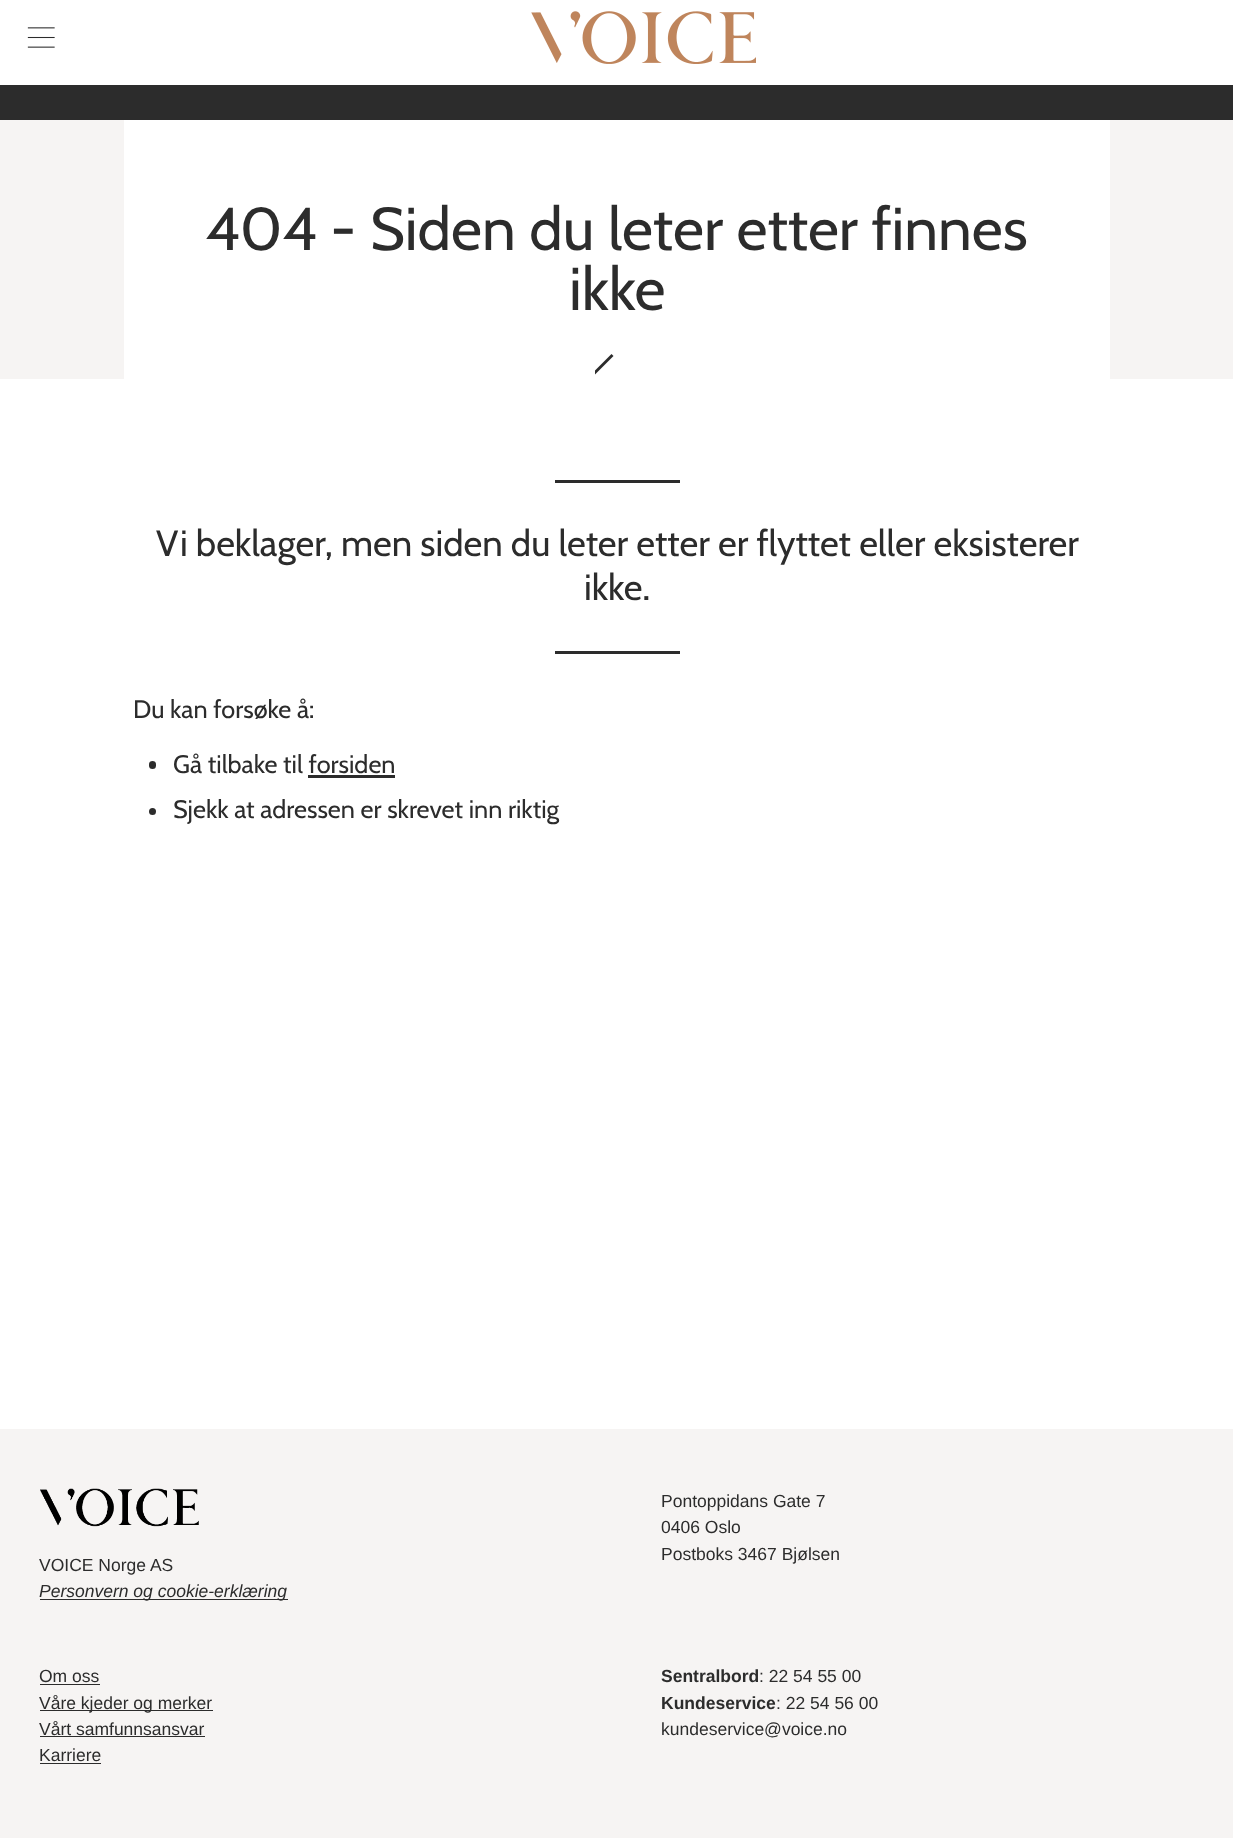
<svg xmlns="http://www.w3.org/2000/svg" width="1233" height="1838">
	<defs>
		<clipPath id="clip1"><rect x="595" y="339" width="45" height="45" /></clipPath>
	</defs>
	<rect width="100%" height="100%" fill="#FFFFFF" />
	<image x="27" y="27" width="28" height="21" href="assets/img1.png" />
	<image x="531" y="11" width="225" height="53" href="assets/img2.png" />
	<rect x="0" y="85" width="1233" height="35" fill="#2C2C2C" />
	<rect x="0" y="120" width="1233" height="259" fill="#F6F4F3" />
	<rect x="124" y="120" width="986" height="259" fill="#FFFFFF" />
	<g font-family="Cabin" font-size="60.4" fill="#2C2C2C">
		<text x="205" y="250">404 - Siden du leter etter finnes</text>
		<text x="569" y="310">ikke</text>
	</g>
	<g clip-path="url(#clip1)">
		<path d="M578.5 354L576.5 356L595 374.5L613.5 356L611.5 354L595 370.5Z" fill="#2C2C2C" />
	</g>
	<rect x="555" y="480" width="125" height="3" fill="#2C2C2C" />
	<g font-family="Cabin" font-size="36.55" fill="#2C2C2C">
		<text x="156" y="556">Vi beklager, men siden du leter etter er flyttet eller eksisterer</text>
		<text x="584" y="600">ikke.</text>
	</g>
	<rect x="555" y="651" width="125" height="3" fill="#2C2C2C" />
	<text x="133" y="718" font-family="Cabin" font-size="25.25" fill="#2C2C2C">Du kan forsøke å:</text>
	<rect x="149" y="761" width="7" height="8" rx="3.5" fill="#2C2C2C" />
	<text x="173" y="773" font-family="Cabin" font-size="25.25" fill="#2C2C2C">Gå tilbake til forsiden</text>
	<rect x="308" y="775" width="87" height="3" fill="#2C2C2C" />
	<circle cx="152.5" cy="811.5" r="3.5" fill="#2C2C2C" />
	<text x="173" y="818" font-family="Cabin" font-size="25.25" fill="#2C2C2C">Sjekk at adressen er skrevet inn riktig</text>
	<rect x="0" y="1429" width="1233" height="409" fill="#F6F4F3" />
	<g font-family="Liberation Sans" font-size="17.5" fill="#2C2C2C">
		<text x="661" y="1507">Pontoppidans Gate 7</text>
		<text x="661" y="1533">0406 Oslo</text>
		<text x="661" y="1560">Postboks 3467 Bjølsen</text>
	</g>
	<image x="40" y="1488" width="159" height="39" href="assets/img3.png" />
	<text x="39" y="1571" font-family="Liberation Sans" font-size="17.5" fill="#2C2C2C">VOICE Norge AS</text>
	<rect x="40" y="1599" width="248" height="1" fill="#2C2C2C" />
	<text x="39" y="1597" font-family="Liberation Sans" font-size="17.5" font-style="italic" fill="#2C2C2C">Personvern og cookie-erklæring</text>
	<text x="39" y="1682" font-family="Liberation Sans" font-size="17.5" fill="#2C2C2C">Om oss</text>
	<rect x="40" y="1684" width="60" height="1" fill="#2C2C2C" />
	<rect x="40" y="1710" width="173" height="1" fill="#2C2C2C" />
	<g font-family="Liberation Sans" font-size="17.5" fill="#2C2C2C">
		<text x="39" y="1709">Våre kjeder og merker</text>
		<text x="39" y="1735">Vårt samfunnsansvar</text>
	</g>
	<rect x="40" y="1736" width="165" height="1" fill="#2C2C2C" />
	<text x="39" y="1761" font-family="Liberation Sans" font-size="17.5" fill="#2C2C2C">Karriere</text>
	<rect x="40" y="1763" width="61" height="1" fill="#2C2C2C" />
	<text x="661" y="1682" font-family="Liberation Sans" font-size="17.5" font-weight="700" fill="#2C2C2C">Sentralbord</text>
	<text x="759" y="1682" font-family="Liberation Sans" font-size="17.5" fill="#2C2C2C">: 22 54 55 00</text>
	<text x="661" y="1709" font-family="Liberation Sans" font-size="17.5" font-weight="700" fill="#2C2C2C">Kundeservice</text>
	<g font-family="Liberation Sans" font-size="17.5" fill="#2C2C2C">
		<text x="776" y="1709">: 22 54 56 00</text>
		<text x="661" y="1735">kundeservice@voice.no</text>
	</g>
</svg>
